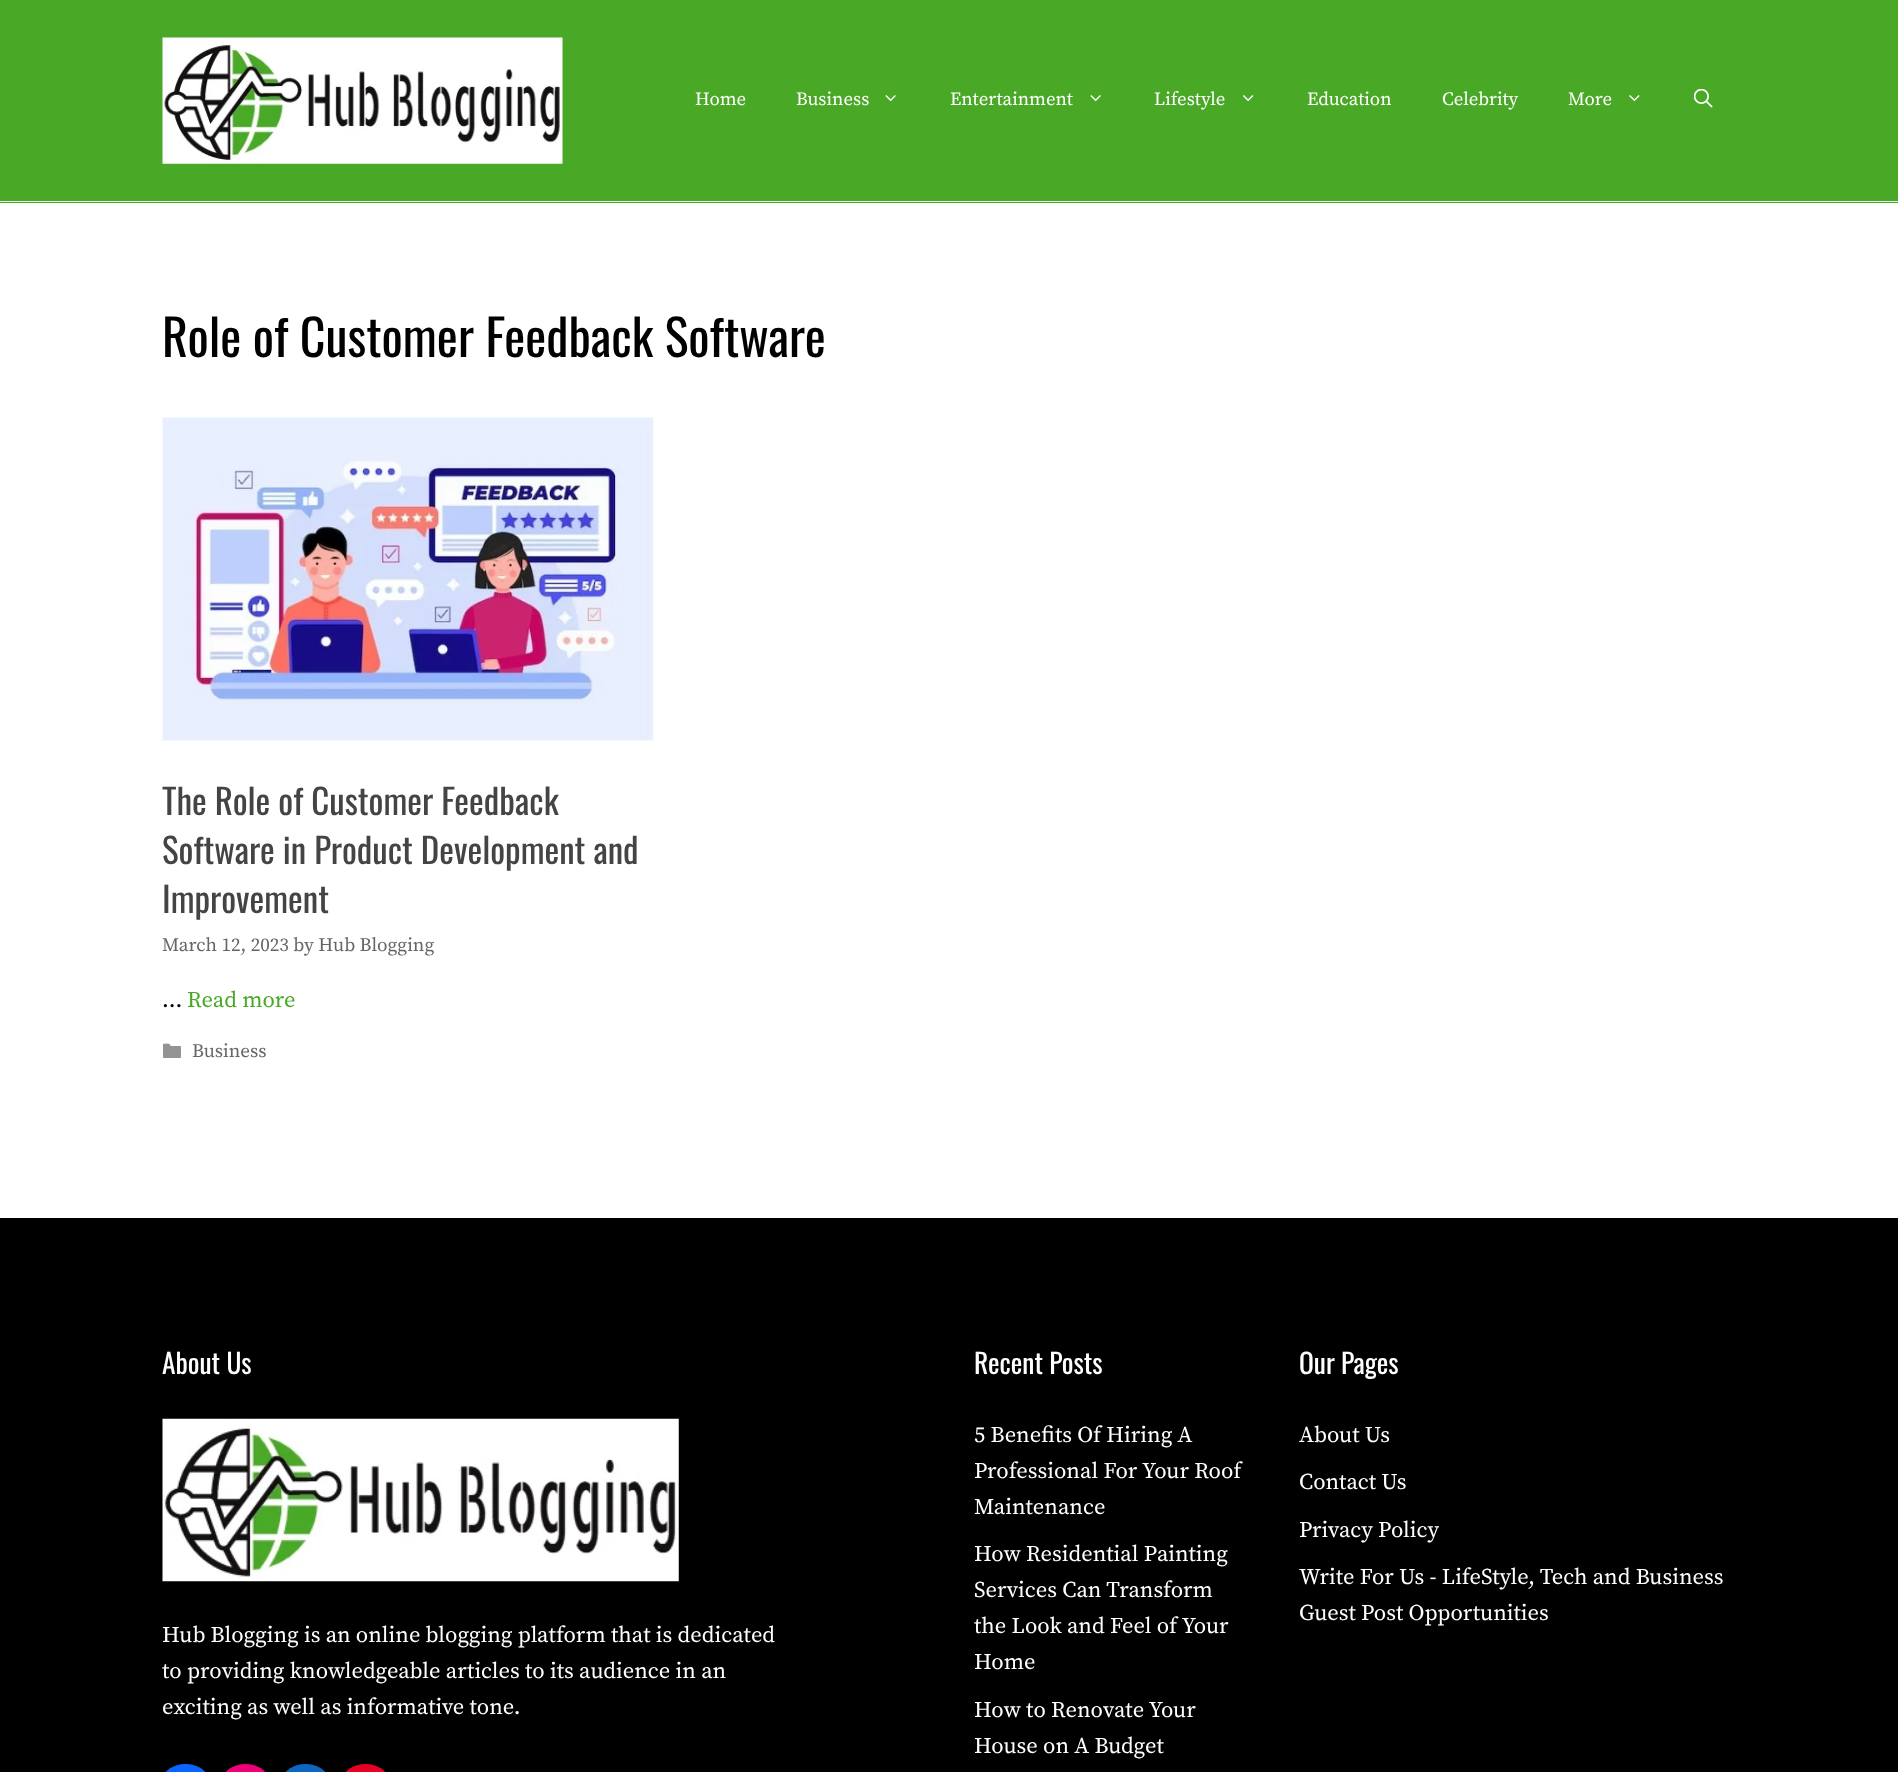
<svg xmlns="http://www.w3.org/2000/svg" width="1898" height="1772">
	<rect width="100%" height="100%" fill="#FFFFFF" />
	<rect x="0" y="0" width="1898" height="203" fill="#49A927" />
	<rect x="0" y="201" width="1898" height="1" fill="#F0F0F0" />
	<image x="162" y="37" width="401" height="127" href="assets/img1.png" />
	<g font-family="Source Serif Pro" font-size="18.75" fill="#FFFFFF">
		<text x="695" y="105">Home</text>
		<text x="796" y="105">Business</text>
	</g>
	<image x="885" y="95" width="11" height="7" href="assets/img2.png" />
	<text x="950" y="105" font-family="Source Serif Pro" font-size="18.75" fill="#FFFFFF">Entertainment</text>
	<image x="1090" y="95" width="11" height="7" href="assets/img2.png" />
	<text x="1154" y="105" font-family="Source Serif Pro" font-size="18.75" fill="#FFFFFF">Lifestyle</text>
	<image x="1243" y="95" width="11" height="7" href="assets/img3.png" />
	<g font-family="Source Serif Pro" font-size="18.75" fill="#FFFFFF">
		<text x="1307" y="105">Education</text>
		<text x="1442" y="105">Celebrity</text>
		<text x="1568" y="105">More</text>
	</g>
	<image x="1629" y="95" width="11" height="7" href="assets/img4.png" />
	<image x="1694" y="89" width="19" height="19" href="assets/img5.png" />
	<text x="162" y="357" font-family="Oswald" font-size="50" fill="#000000">Role of Customer Feedback Software</text>
	<image x="162" y="417" width="492" height="324" href="assets/img6.png" />
	<g font-family="Oswald" font-size="35" fill="#444444">
		<text x="162" y="815">The Role of Customer Feedback</text>
		<text x="162" y="864">Software in Product Development and</text>
		<text x="162" y="913">Improvement</text>
	</g>
	<text x="162" y="951" font-family="Source Serif Pro" font-size="19.1" fill="#666666">March 12, 2023 by Hub Blogging</text>
	<text x="162" y="1007" font-family="Source Serif Pro" font-size="22.5" fill="#000000">…</text>
	<text x="187" y="1007" font-family="Source Serif Pro" font-size="22.5" fill="#49A927">Read more</text>
	<image x="163" y="1043" width="18" height="15" href="assets/img7.png" />
	<text x="192" y="1057" font-family="Source Serif Pro" font-size="19.1" fill="#666666">Business</text>
	<rect x="0" y="1218" width="1898" height="554" fill="#000000" />
	<text x="162" y="1374" font-family="Oswald" font-size="27.5" fill="#FFFFFF">About Us</text>
	<image x="162" y="1418" width="517" height="164" href="assets/img8.png" />
	<g font-family="Source Serif Pro" font-size="22.5" fill="#FFFFFF">
		<text x="162" y="1642">Hub Blogging is an online blogging platform that is dedicated</text>
		<text x="162" y="1678">to providing knowledgeable articles to its audience in an</text>
		<text x="162" y="1714">exciting as well as informative tone.</text>
	</g>
	<rect x="163" y="1764" width="45" height="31" rx="22.5" fill="#0866FF" />
	<rect x="223" y="1764" width="45" height="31" rx="22.5" fill="#F00075" />
	<rect x="283" y="1764" width="45" height="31" rx="22.5" fill="#0D66C2" />
	<rect x="343" y="1764" width="45" height="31" rx="22.5" fill="#E60122" />
	<text x="974" y="1374" font-family="Oswald" font-size="27.5" fill="#FFFFFF">Recent Posts</text>
	<g font-family="Source Serif Pro" font-size="22.5" fill="#FFFFFF">
		<text x="974" y="1442">5 Benefits Of Hiring A</text>
		<text x="974" y="1478">Professional For Your Roof</text>
		<text x="974" y="1514">Maintenance</text>
		<text x="974" y="1561">How Residential Painting</text>
		<text x="974" y="1597">Services Can Transform</text>
		<text x="974" y="1633">the Look and Feel of Your</text>
		<text x="974" y="1669">Home</text>
		<text x="974" y="1717">How to Renovate Your</text>
		<text x="974" y="1753">House on A Budget</text>
	</g>
	<text x="1299" y="1374" font-family="Oswald" font-size="27.5" fill="#FFFFFF">Our Pages</text>
	<g font-family="Source Serif Pro" font-size="22.5" fill="#FFFFFF">
		<text x="1299" y="1442">About Us</text>
		<text x="1299" y="1489">Contact Us</text>
		<text x="1299" y="1537">Privacy Policy</text>
		<text x="1299" y="1584">Write For Us - LifeStyle, Tech and Business</text>
		<text x="1299" y="1620">Guest Post Opportunities</text>
	</g>
</svg>
